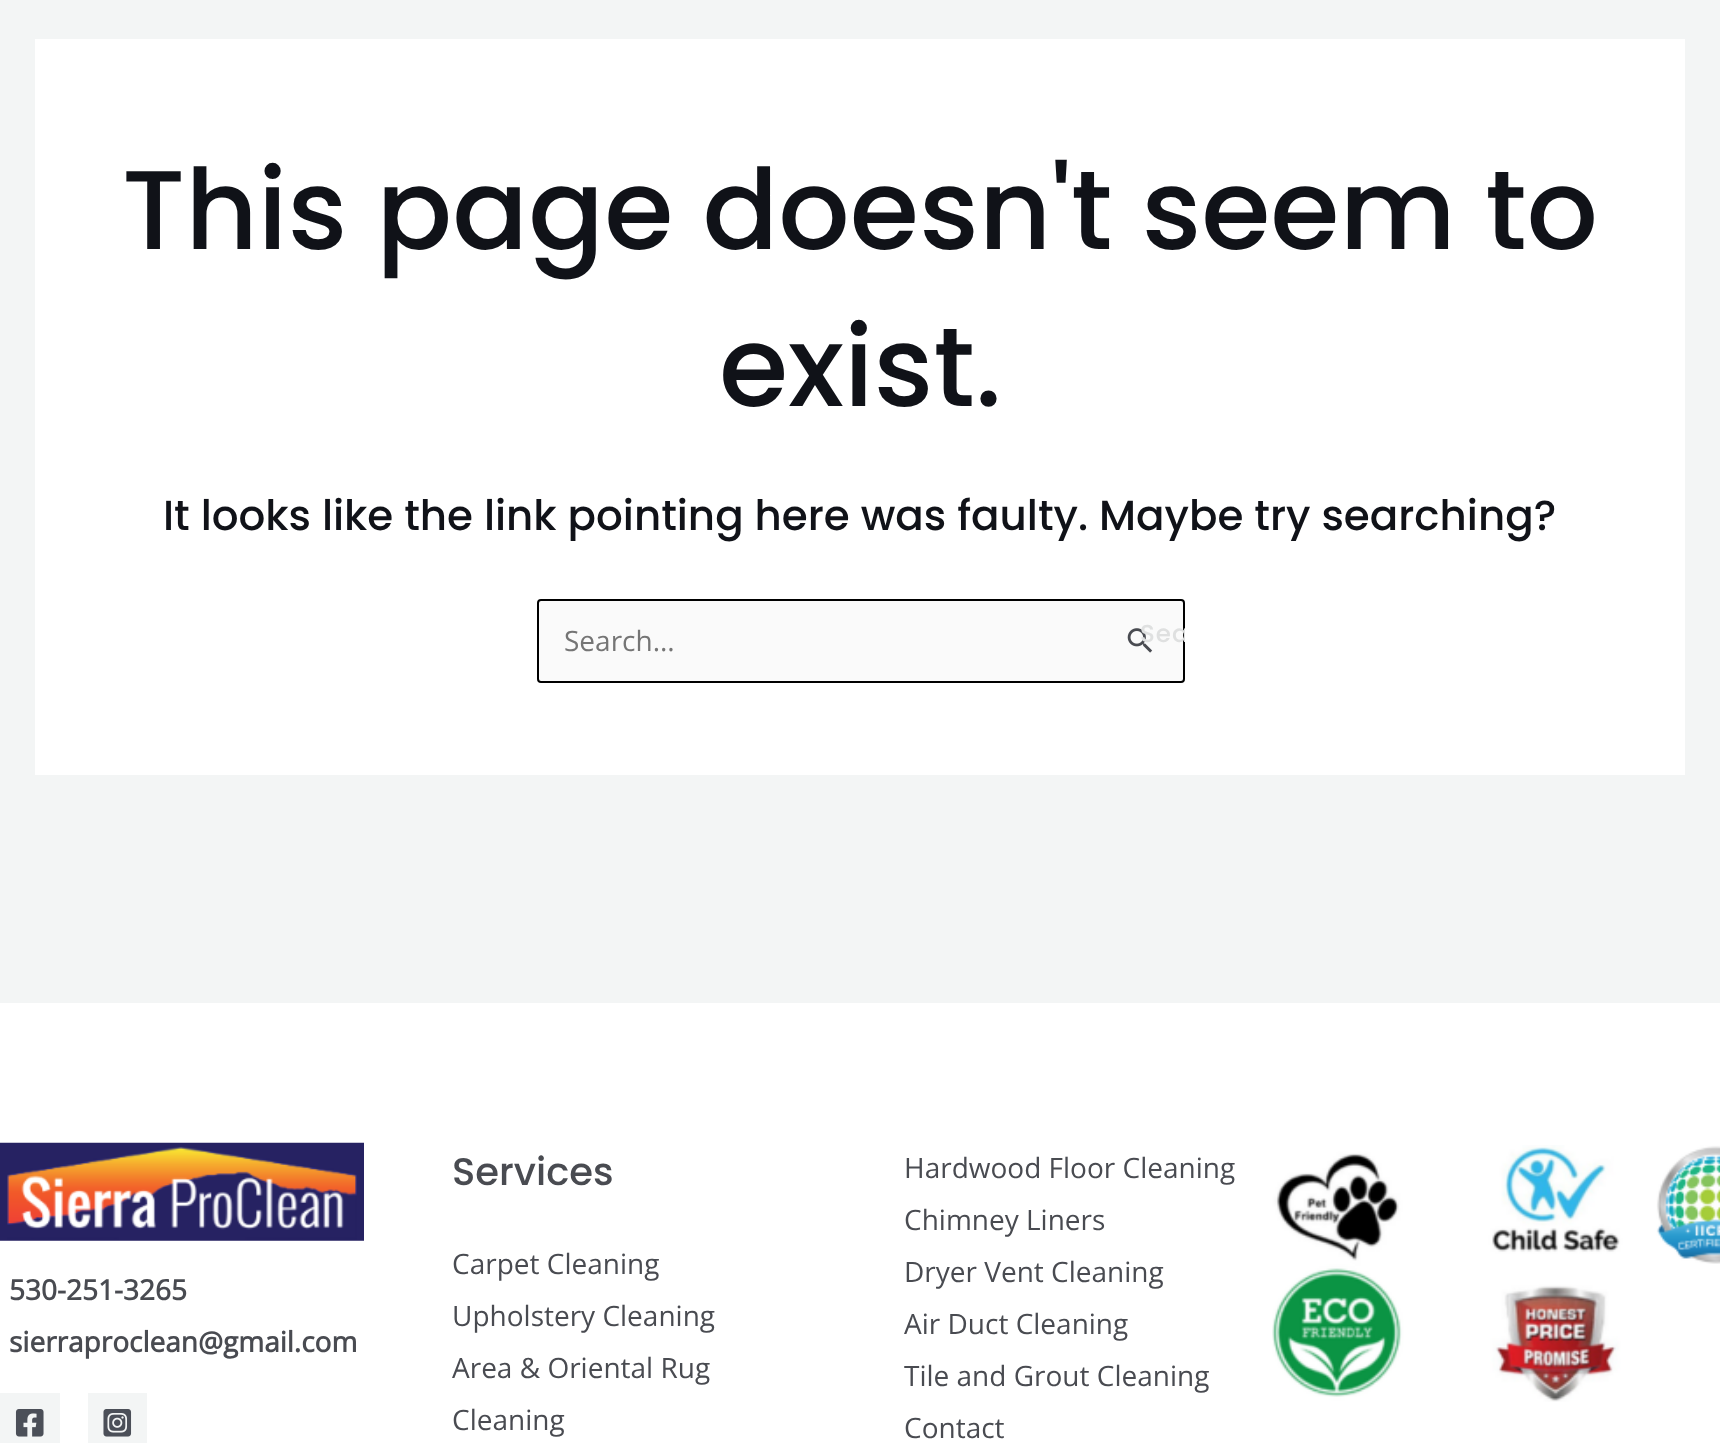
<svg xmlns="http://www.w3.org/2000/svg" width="1720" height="1443">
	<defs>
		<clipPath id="clip1"><rect x="1106" y="599" width="79" height="70" rx="4" /></clipPath>
	</defs>
	<rect width="100%" height="100%" fill="#F3F5F5" />
	<rect x="35" y="39" width="1650" height="736" fill="#FFFFFF" />
	<g font-family="Poppins" font-size="112" font-weight="500" fill="#101218">
		<text x="122" y="249">This page doesn't seem to</text>
		<text x="719" y="406">exist.</text>
	</g>
	<text x="163" y="530" font-family="Poppins" font-size="42" font-weight="500" fill="#101218">It looks like the link pointing here was faulty. Maybe try searching?</text>
	<rect x="538" y="600" width="646" height="82" rx="3" fill="#FAFAFA" stroke="#000000" stroke-width="2" />
	<text x="564" y="651" font-family="Open Sans" font-size="28" fill="#757575">Search...</text>
	<image x="1127" y="628" width="26" height="25" href="assets/img1.png" />
	<g clip-path="url(#clip1)">
		<text x="1140" y="642" font-family="Poppins" font-size="24.5" font-weight="500" letter-spacing="1" fill="#DFE0E0">Sea</text>
	</g>
	<rect x="0" y="1003" width="1720" height="440" fill="#FFFFFF" />
	<image x="0" y="1142" width="364" height="99" href="assets/img2.png" />
	<g font-family="Open Sans" font-size="28" font-weight="700" fill="#494B51">
		<text x="9" y="1300">530-251-3265</text>
		<text x="9" y="1352">sierraproclean@gmail.com</text>
	</g>
	<rect x="0" y="1393" width="60" height="50" fill="#F3F5F5" />
	<image x="15" y="1409" width="29" height="28" href="assets/img3.png" />
	<rect x="88" y="1393" width="59" height="50" fill="#F3F5F5" />
	<image x="103" y="1409" width="29" height="28" href="assets/img4.png" />
	<text x="452" y="1185" font-family="Poppins" font-size="38.5" font-weight="500" fill="#494B51">Services</text>
	<g font-family="Open Sans" font-size="28" fill="#494B51">
		<text x="452" y="1274">Carpet Cleaning</text>
		<text x="452" y="1326">Upholstery Cleaning</text>
		<text x="452" y="1378">Area &amp; Oriental Rug</text>
		<text x="452" y="1430">Cleaning</text>
		<text x="904" y="1178">Hardwood Floor Cleaning</text>
		<text x="904" y="1230">Chimney Liners</text>
		<text x="904" y="1282">Dryer Vent Cleaning</text>
		<text x="904" y="1334">Air Duct Cleaning</text>
		<text x="904" y="1386">Tile and Grout Cleaning</text>
		<text x="904" y="1438">Contact</text>
	</g>
	<image x="1272" y="1145" width="448" height="257" href="assets/img5.png" />
</svg>
